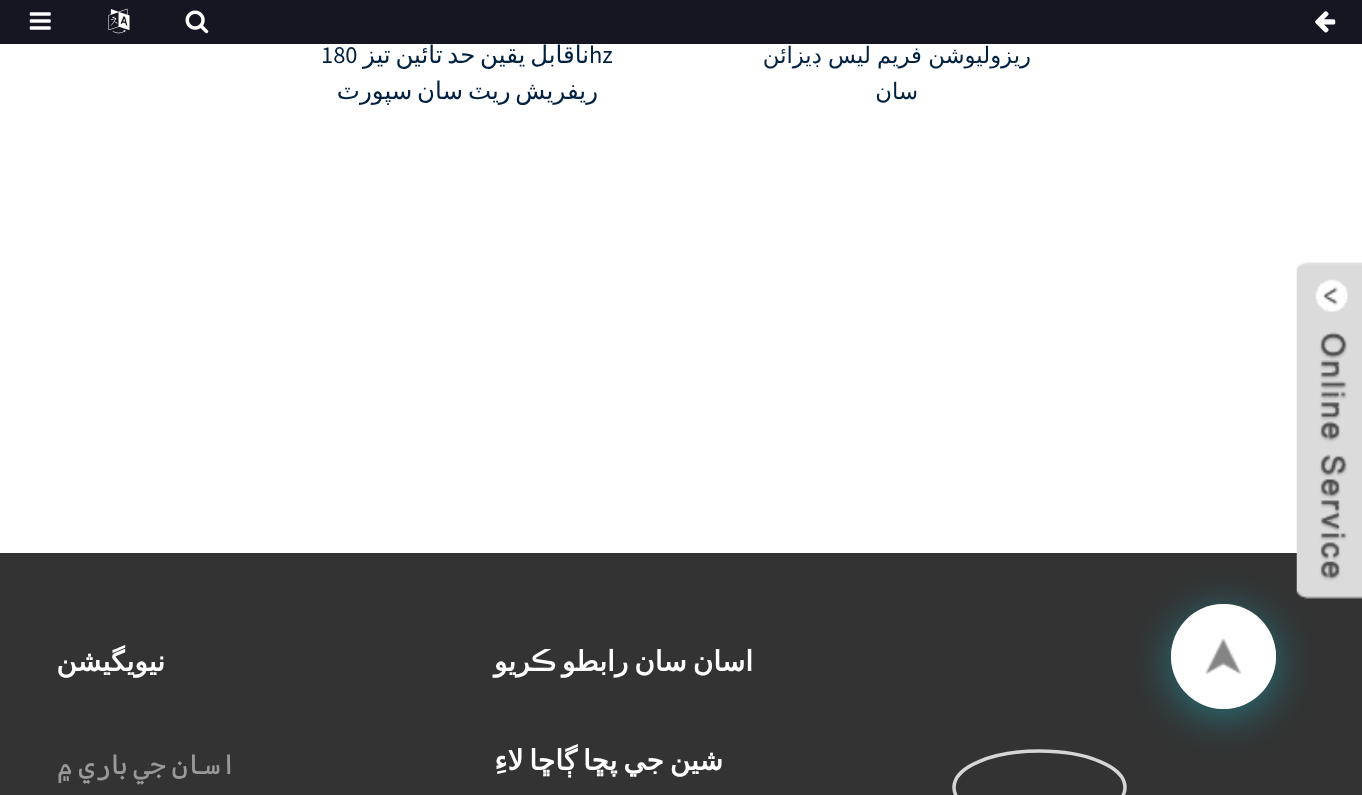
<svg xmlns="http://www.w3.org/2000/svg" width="1362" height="795">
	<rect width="100%" height="100%" fill="#FFFFFF" />
	<rect x="0" y="0" width="1362" height="44" fill="#161622" />
	<image x="1315" y="11" width="21" height="22" href="assets/img1.png" />
	<image x="185" y="10" width="24" height="24" href="assets/img2.png" />
	<image x="108" y="8" width="22" height="26" href="assets/img3.png" />
	<image x="29" y="12" width="22" height="18" href="assets/img4.png" />
	<rect x="0" y="553" width="1362" height="242" fill="#333333" />
	<image x="1296" y="262" width="66" height="337" href="assets/img6.png" />
	<path d="M1039.5 751C1087 751 1125 767 1125 787.5C1125 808 1087 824 1039.5 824C992 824 954 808 954 787.5C954 767 992 751 1039.5 751Z" fill="none" stroke="#D6D6D6" stroke-width="3.5" />
	<rect x="1171" y="611" width="105" height="105" rx="52.5" fill="#1AB5C9" fill-opacity="0.5" filter="blur(21px)" />
	<circle cx="1223.5" cy="656.5" r="52.5" fill="#FFFFFF" />
	<circle cx="1223.5" cy="656.5" r="52.5" fill="#FFFFFF" fill-opacity="0.6" />
	<image x="1205" y="638" width="36" height="36" href="assets/img5.png" />
	<g font-family="DejaVu Sans" font-size="22.75" direction="rtl" fill="#002140">
		<text x="1031" y="63" word-spacing="-1">ريزوليوشن فريم لیس ڊيزائن</text>
		<text x="918" y="99">سان</text>
	</g>
	<text x="589" y="63" font-family="Source Sans Pro" font-size="24.5" fill="#002140">hz</text>
	<text x="589" y="63" word-spacing="-3" font-family="DejaVu Sans" font-size="24.5" direction="rtl" fill="#002140">ناقابل يقين حد تائين تيز</text>
	<text x="321" y="63" font-family="Source Sans Pro" font-size="24.5" fill="#002140">180</text>
	<text x="598" y="99" word-spacing="-3" font-family="DejaVu Sans" font-size="24.5" direction="rtl" fill="#002140">ريفريش ريٽ سان سپورٽ</text>
	<g font-family="DejaVu Sans" font-size="28" font-weight="700" direction="rtl" fill="#FFFFFF">
		<text x="753" y="671" word-spacing="-3">اسان سان رابطو ڪريو</text>
		<text x="723" y="770" word-spacing="-3">شين جي پڇا ڳاڇا لاءِ</text>
		<text x="165" y="671">نيويگيشن</text>
	</g>
	<text x="237" y="774" word-spacing="-11" font-family="Cascadia Code" font-size="28" direction="rtl" fill="#999999">اسان جي باري ۾</text>
</svg>
